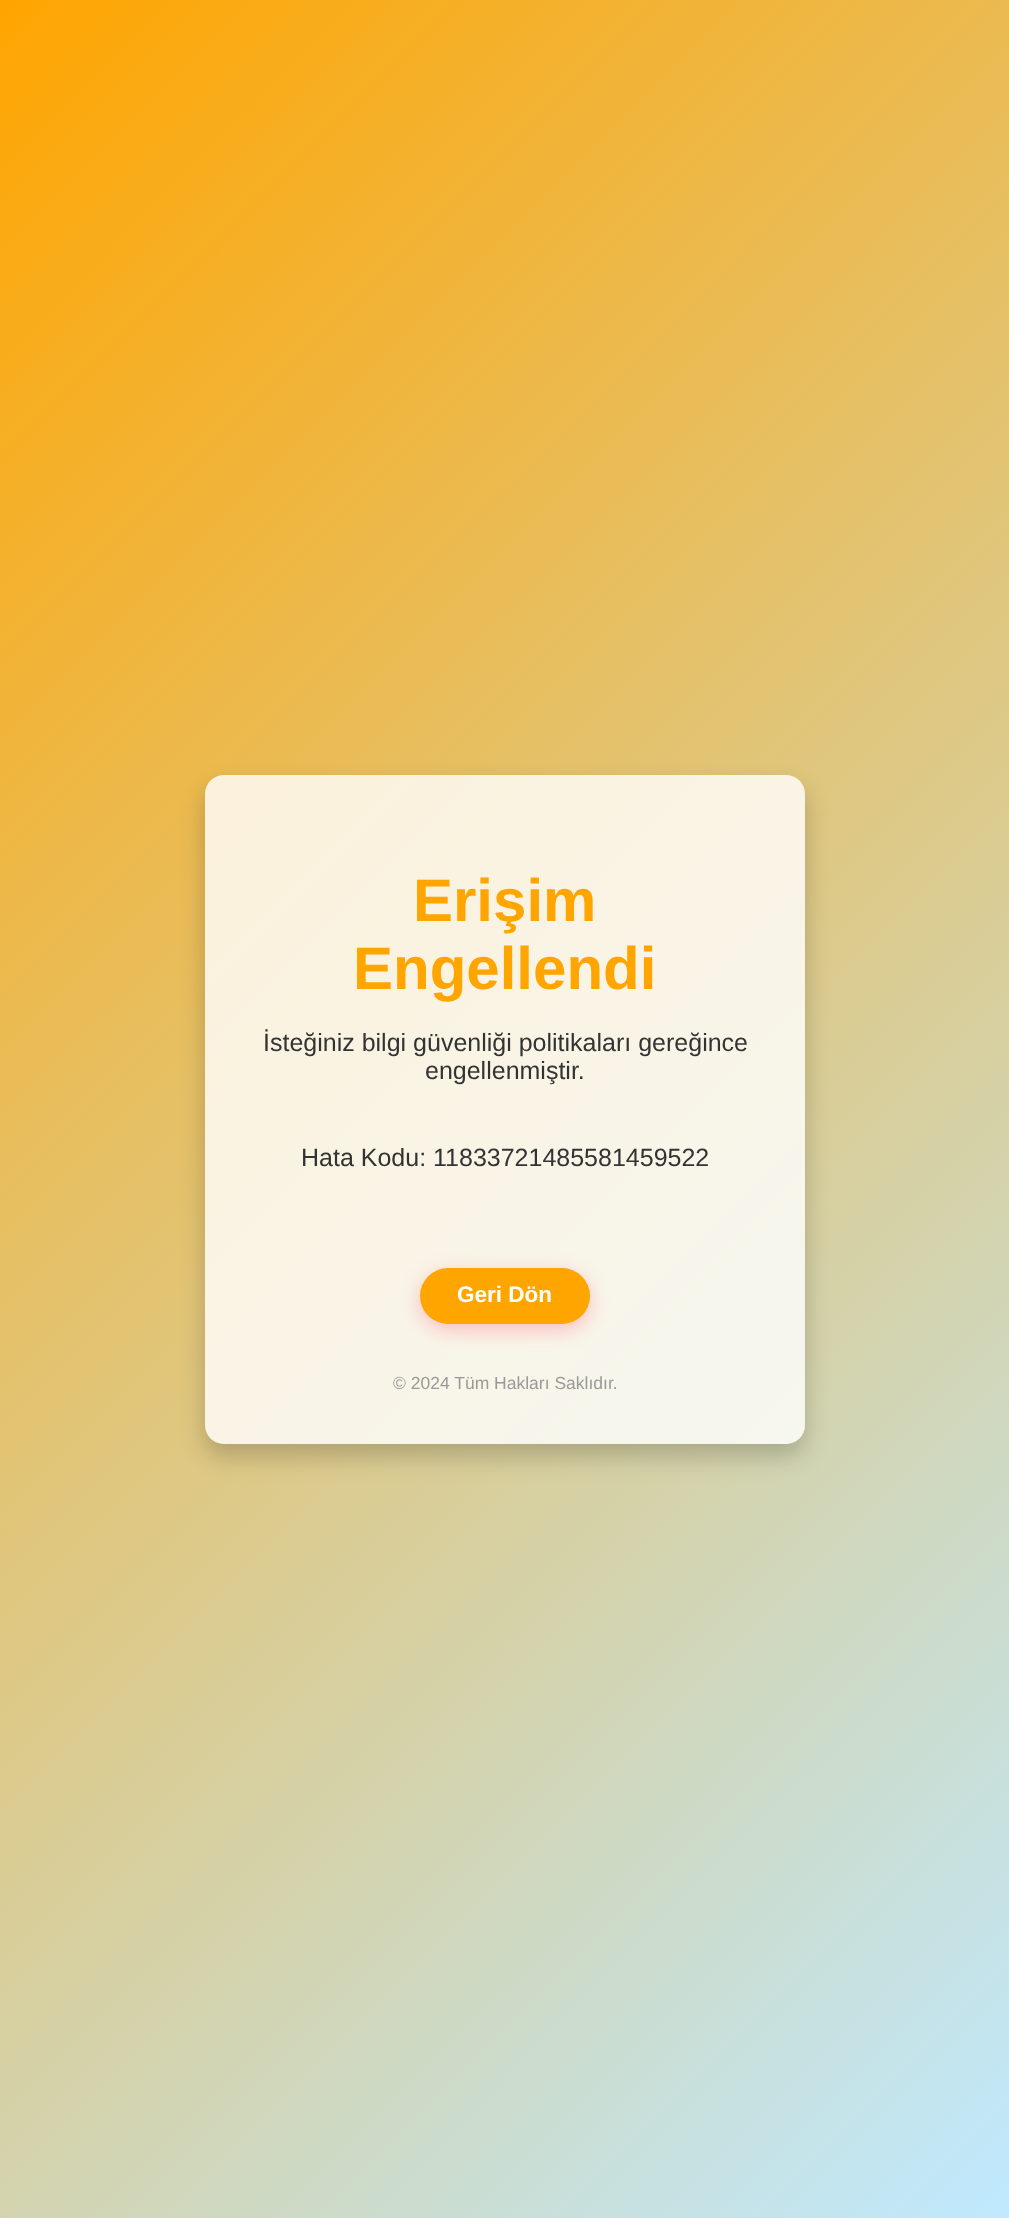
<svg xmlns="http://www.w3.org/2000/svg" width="1009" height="2218">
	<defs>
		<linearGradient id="g1" gradientUnits="userSpaceOnUse" x1="-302" y1="302" x2="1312" y2="1917"><stop offset="0" stop-color="#FFA500" /><stop offset="1" stop-color="#BFE9FF" /></linearGradient>
		<clipPath id="clip1"><path d="M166 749H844V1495H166ZM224 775H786C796.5 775 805 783.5 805 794V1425C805 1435.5 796.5 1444 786 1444H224C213.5 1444 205 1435.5 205 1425V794C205 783.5 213.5 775 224 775Z" clip-rule="evenodd" /></clipPath>
	</defs>
	<rect width="100%" height="100%" fill="#FFFFFF" />
	<rect x="0" y="0" width="1009" height="2218" fill="url(#g1)" />
	<g clip-path="url(#clip1)">
		<rect x="205" y="788" width="600" height="668" rx="19" fill="#000000" fill-opacity="0.2" filter="blur(12.5px)" />
	</g>
	<rect x="205" y="775" width="600" height="669" rx="19" fill="#FFFFFF" fill-opacity="0.8" />
	<g font-family="Liberation Sans" font-size="60" font-weight="700" fill="#FFA500">
		<text x="413" y="921">Erişim</text>
		<text x="353" y="989">Engellendi</text>
	</g>
	<g font-family="Liberation Sans" font-size="25" fill="#333333">
		<text x="263" y="1051">İsteğiniz bilgi güvenliği politikaları gereğince</text>
		<text x="425" y="1079">engellenmiştir.</text>
		<text x="301" y="1166">Hata Kodu: 11833721485581459522</text>
	</g>
	<rect x="420" y="1274" width="170" height="56" rx="28" fill="#FF6E7F" fill-opacity="0.4" filter="blur(9.5px)" />
	<rect x="420" y="1268" width="170" height="56" rx="28" fill="#FFA500" />
	<text x="457" y="1302" font-family="Liberation Sans" font-size="22.5" font-weight="700" fill="#FFFFFF">Geri Dön</text>
	<text x="393" y="1389" font-family="Liberation Sans" font-size="17.5" fill="#999999">© 2024 Tüm Hakları Saklıdır.</text>
</svg>
